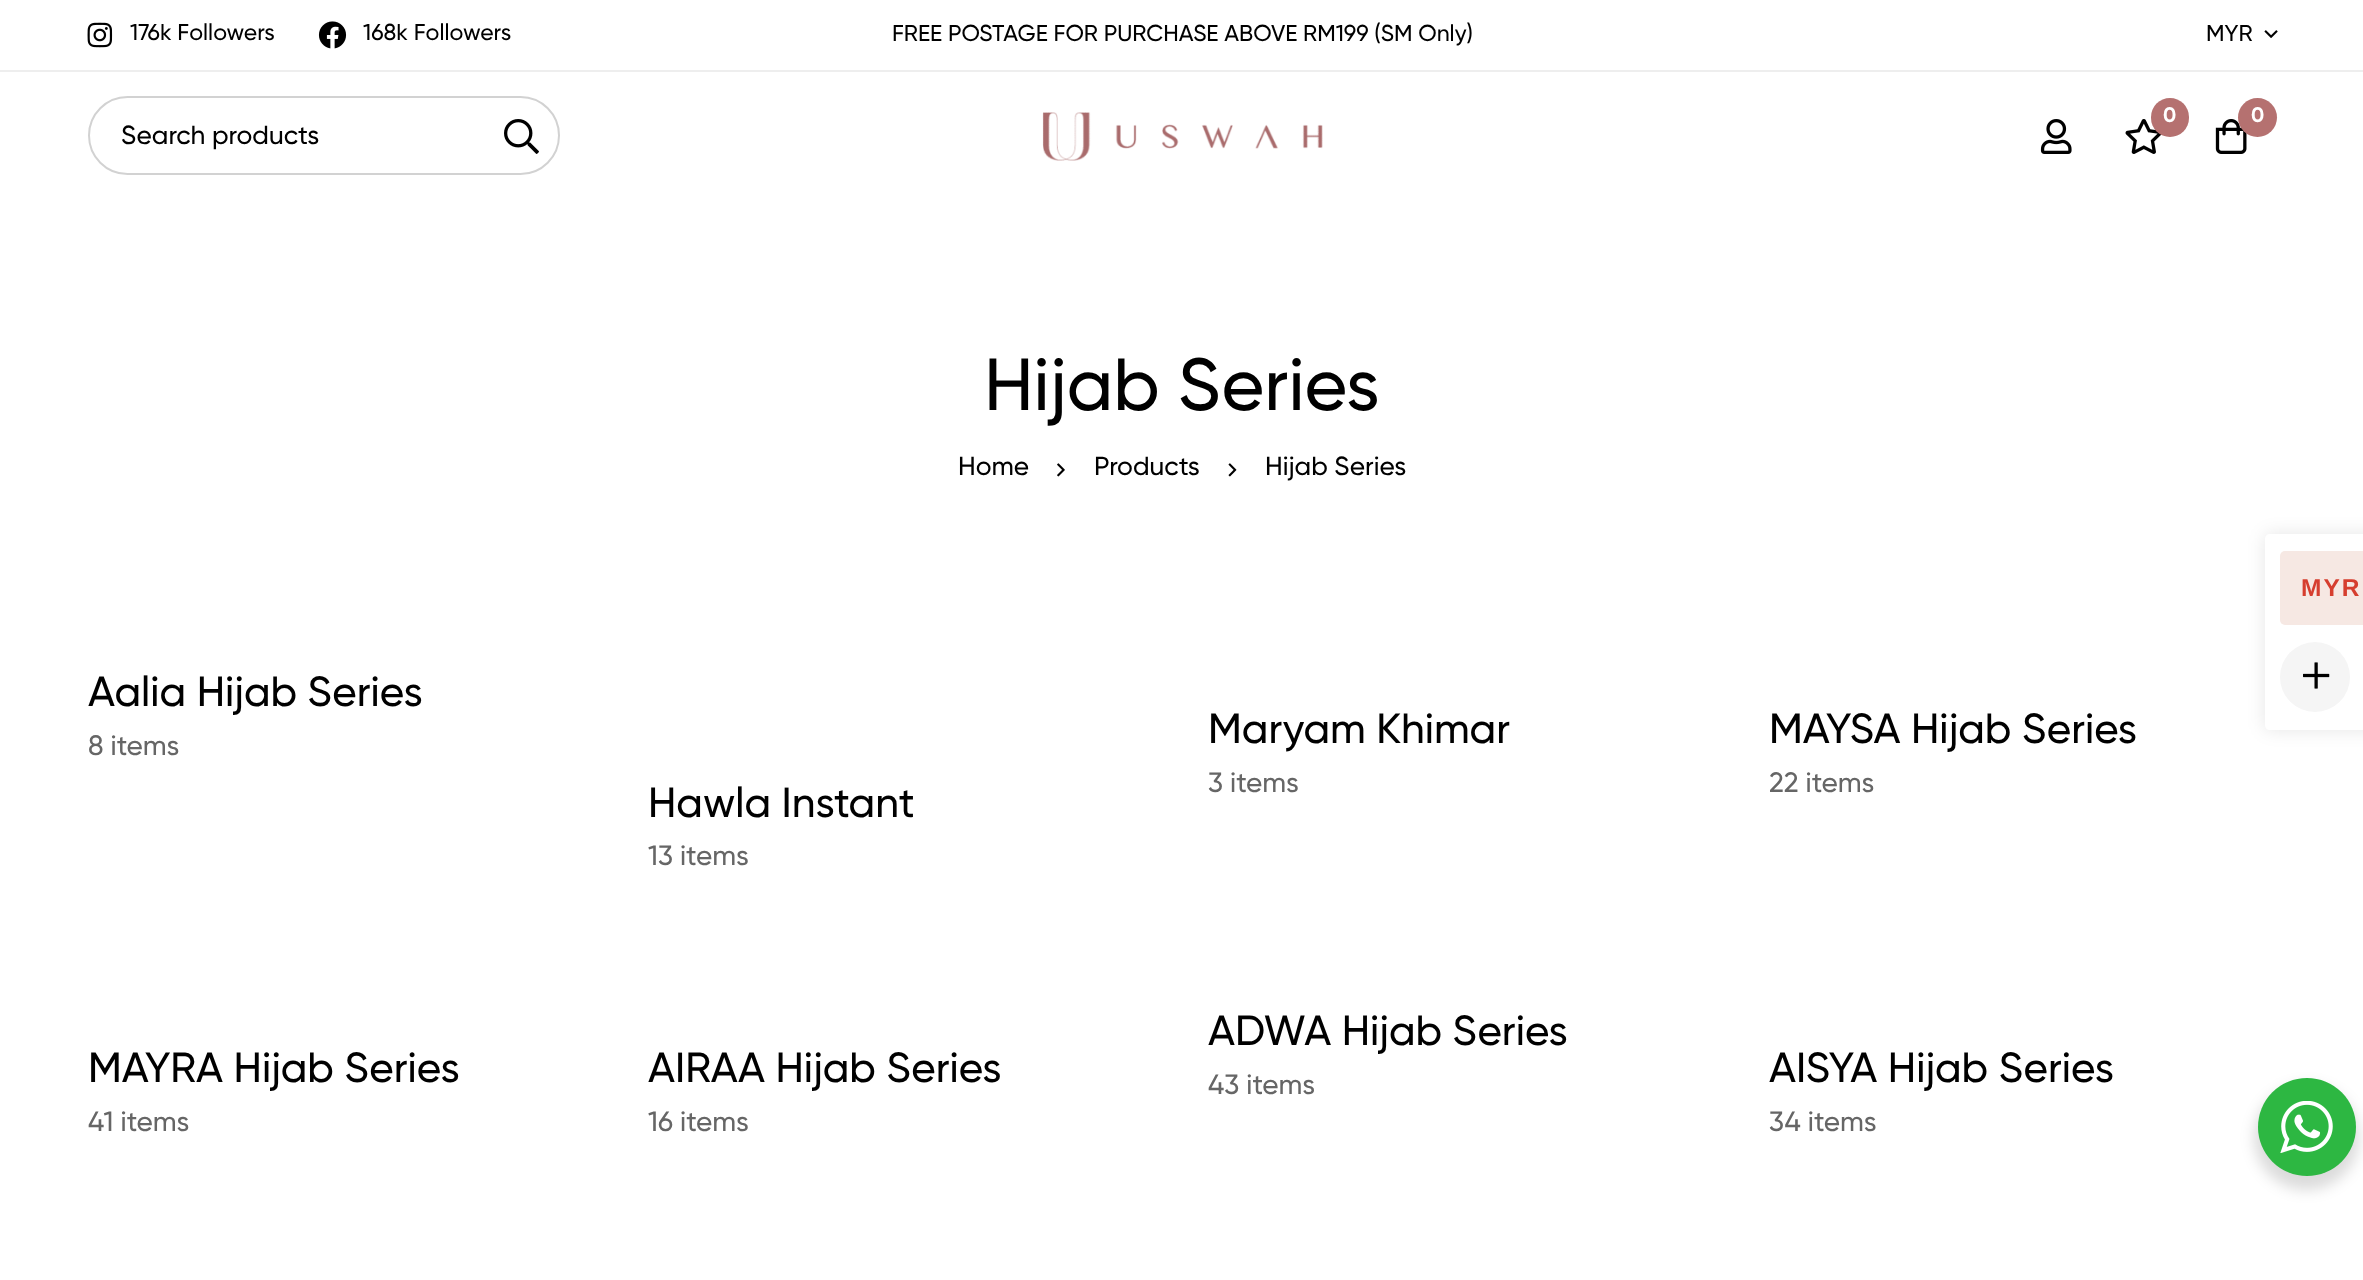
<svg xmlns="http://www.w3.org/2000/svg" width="2363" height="1280">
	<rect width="100%" height="100%" fill="#FFFFFF" />
	<rect x="0" y="70" width="2363" height="2" fill="#EEEEEE" />
	<image x="87" y="22" width="26" height="26" href="assets/img1.png" />
	<text x="130" y="40" font-family="Gilroy" font-size="23" font-weight="500" fill="#000000">176k Followers</text>
	<image x="318" y="21" width="29" height="28" href="assets/img2.png" />
	<g font-family="Gilroy" font-size="23" font-weight="500" fill="#000000">
		<text x="363" y="40">168k Followers</text>
		<text x="892" y="41">FREE POSTAGE FOR PURCHASE ABOVE RM199 (SM Only)</text>
		<text x="2206" y="41">MYR</text>
	</g>
	<image x="2264" y="30" width="14" height="8" href="assets/img3.png" />
	<rect x="89" y="97" width="470" height="77" rx="38.5" fill="none" stroke="#D2D2D2" stroke-width="2" />
	<text x="121" y="144" font-family="Gilroy" font-size="26.25" font-weight="500" fill="#000000">Search products</text>
	<image x="504" y="119" width="35" height="35" href="assets/img4.png" />
	<image x="1042" y="112" width="281" height="49" href="assets/img5.png" />
	<image x="2125" y="119" width="37" height="35" href="assets/img6.png" />
	<rect x="2151" y="98" width="38" height="39" rx="19" fill="#B57170" />
	<text x="2163" y="122" font-family="Gilroy" font-size="21" font-weight="700" fill="#FFFFFF">0</text>
	<image x="2215" y="119" width="32" height="35" href="assets/img7.png" />
	<circle cx="2257.5" cy="117.5" r="19.5" fill="#B57170" />
	<text x="2251" y="122" font-family="Gilroy" font-size="21" font-weight="700" fill="#FFFFFF">0</text>
	<image x="2040" y="119" width="32" height="35" href="assets/img8.png" />
	<text x="984" y="410" font-family="Gilroy" font-size="73.5" font-weight="500" fill="#000000">Hijab Series</text>
	<text x="958" y="475" font-family="Gilroy" font-size="26.25" font-weight="500" fill="#000000">Home</text>
	<image x="1057" y="463" width="8" height="14" href="assets/img9.png" />
	<text x="1094" y="475" font-family="Gilroy" font-size="26.25" font-weight="500" fill="#000000">Products</text>
	<image x="1228" y="463" width="9" height="14" href="assets/img10.png" />
	<text x="1265" y="475" font-family="Gilroy" font-size="26.25" font-weight="500" fill="#000000">Hijab Series</text>
	<text x="88" y="706" font-family="Gilroy" font-size="42" font-weight="500" fill="#000000">Aalia Hijab Series</text>
	<text x="88" y="755" font-family="Gilroy" font-size="28" font-weight="500" fill="#666666">8 items</text>
	<text x="1208" y="743" font-family="Gilroy" font-size="42" font-weight="500" fill="#000000">Maryam Khimar</text>
	<text x="1208" y="792" font-family="Gilroy" font-size="28" font-weight="500" fill="#666666">3 items</text>
	<text x="1769" y="743" font-family="Gilroy" font-size="42" font-weight="500" fill="#000000">MAYSA Hijab Series</text>
	<text x="1769" y="792" font-family="Gilroy" font-size="28" font-weight="500" fill="#666666">22 items</text>
	<text x="648" y="817" font-family="Gilroy" font-size="42" font-weight="500" fill="#000000">Hawla Instant</text>
	<text x="648" y="865" font-family="Gilroy" font-size="28" font-weight="500" fill="#666666">13 items</text>
	<text x="88" y="1082" font-family="Gilroy" font-size="42" font-weight="500" fill="#000000">MAYRA Hijab Series</text>
	<text x="88" y="1131" font-family="Gilroy" font-size="28" font-weight="500" fill="#666666">41 items</text>
	<text x="648" y="1082" font-family="Gilroy" font-size="42" font-weight="500" fill="#000000">AIRAA Hijab Series</text>
	<text x="648" y="1131" font-family="Gilroy" font-size="28" font-weight="500" fill="#666666">16 items</text>
	<text x="1208" y="1045" font-family="Gilroy" font-size="42" font-weight="500" fill="#000000">ADWA Hijab Series</text>
	<text x="1208" y="1094" font-family="Gilroy" font-size="28" font-weight="500" fill="#666666">43 items</text>
	<text x="1769" y="1082" font-family="Gilroy" font-size="42" font-weight="500" fill="#000000">AISYA Hijab Series</text>
	<text x="1769" y="1131" font-family="Gilroy" font-size="28" font-weight="500" fill="#666666">34 items</text>
	<rect x="2265" y="534" width="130" height="196" rx="5" fill="#000000" fill-opacity="0.1" filter="blur(9px)" />
	<path d="M2270 534H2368V730H2270C2267 730 2265 728 2265 725V539C2265 536 2267 534 2270 534Z" fill="#FFFFFF" />
	<rect x="2280" y="551" width="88" height="74" rx="5" fill="#F6E8E3" />
	<text x="2301" y="596" font-family="Liberation Sans" font-size="24.5" font-weight="700" letter-spacing="2" fill="#D63E2F">MYR</text>
	<circle cx="2315" cy="677" r="35" fill="#F5F5F5" />
	<image x="2303" y="662" width="27" height="27" href="assets/img11.png" />
	<rect x="2254" y="1085" width="105" height="105" rx="52.5" fill="#000000" fill-opacity="0.14" filter="blur(7px)" />
	<circle cx="2307" cy="1127" r="49" fill="#2DB742" />
	<image x="2280" y="1101" width="53" height="52" href="assets/img12.png" />
</svg>
